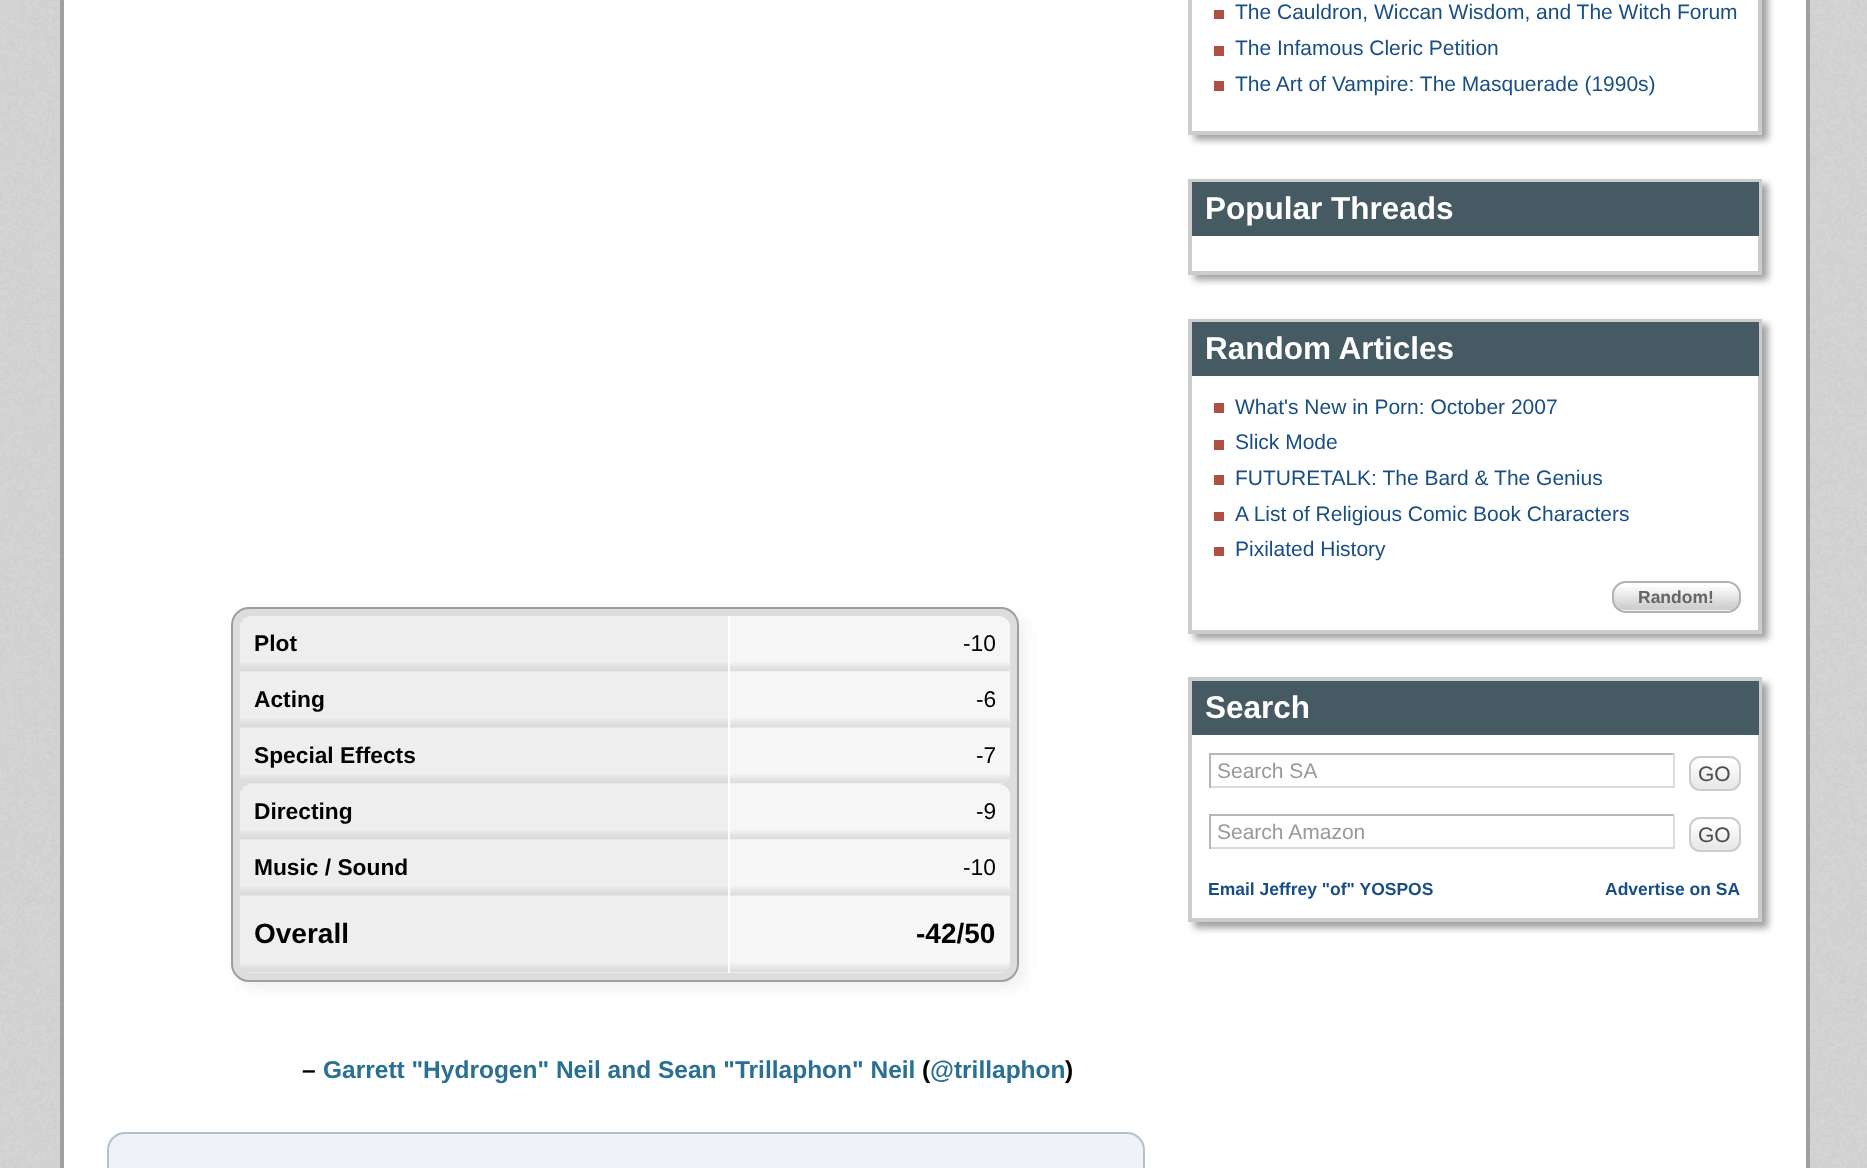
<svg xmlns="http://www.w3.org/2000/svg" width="1867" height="1168">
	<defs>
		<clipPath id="clip1"><path d="M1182 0H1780V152H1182ZM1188-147H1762V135H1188Z" clip-rule="evenodd" /></clipPath>
		<clipPath id="clip2"><path d="M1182 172H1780V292H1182ZM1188 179H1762V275H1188Z" clip-rule="evenodd" /></clipPath>
		<clipPath id="clip3"><path d="M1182 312H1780V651H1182ZM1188 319H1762V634H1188Z" clip-rule="evenodd" /></clipPath>
		<clipPath id="clip4"><path d="M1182 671H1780V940H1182ZM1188 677H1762V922H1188Z" clip-rule="evenodd" /></clipPath>
	</defs>
	<rect width="100%" height="100%" fill="#FFFFFF" />
	<image x="0" y="0" width="1867" height="1168" href="assets/img1.png" />
	<rect x="64" y="0" width="1742" height="1168" fill="#FFFFFF" />
	<rect x="1806" y="0" width="4" height="1168" fill="#A0A0A0" />
	<rect x="60" y="0" width="4" height="1168" fill="#A0A0A0" />
	<rect x="238" y="614" width="788" height="375" rx="18" fill="#F0F0F0" filter="blur(7px)" />
	<rect x="232" y="608" width="786" height="373" rx="17" fill="#DDDDDD" stroke="#9E9E9E" stroke-width="2" />
	<path d="M251 616H728V672H240V627C240 621 245 616 251 616Z" fill="#EEEEEE" />
	<image x="240" y="663" width="488" height="9" href="assets/img2.png" />
	<text x="254" y="651" font-family="Liberation Sans" font-size="22.75" font-weight="700" fill="#000000">Plot</text>
	<path d="M728 616H999C1005 616 1010 621 1010 627V672H728Z" fill="#F6F6F6" />
	<image x="730" y="662" width="280" height="10" href="assets/img3.png" />
	<rect x="728" y="616" width="2" height="112" fill="#FFFFFF" />
	<text x="963" y="651" font-family="Liberation Sans" font-size="22.75" fill="#000000">-10</text>
	<rect x="240" y="672" width="488" height="56" fill="#EEEEEE" />
	<image x="240" y="719" width="488" height="9" href="assets/img4.png" />
	<text x="254" y="707" font-family="Liberation Sans" font-size="22.75" font-weight="700" fill="#000000">Acting</text>
	<rect x="730" y="672" width="280" height="56" fill="#F6F6F6" />
	<image x="730" y="718" width="280" height="10" href="assets/img5.png" />
	<text x="976" y="707" font-family="Liberation Sans" font-size="22.75" fill="#000000">-6</text>
	<path d="M240 728H728V784H251C245 784 240 779 240 773Z" fill="#EEEEEE" />
	<image x="241" y="775" width="487" height="9" href="assets/img6.png" />
	<text x="254" y="763" font-family="Liberation Sans" font-size="22.75" font-weight="700" fill="#000000">Special Effects</text>
	<path d="M728 728H1010V773C1010 779 1005 784 999 784H728Z" fill="#F6F6F6" />
	<image x="730" y="774" width="279" height="10" href="assets/img7.png" />
	<rect x="728" y="728" width="2" height="56" fill="#FFFFFF" />
	<text x="976" y="763" font-family="Liberation Sans" font-size="22.75" fill="#000000">-7</text>
	<path d="M251 784H728V840H240V795C240 789 245 784 251 784Z" fill="#EEEEEE" />
	<image x="240" y="831" width="488" height="9" href="assets/img2.png" />
	<text x="254" y="819" font-family="Liberation Sans" font-size="22.75" font-weight="700" fill="#000000">Directing</text>
	<path d="M728 784H999C1005 784 1010 789 1010 795V840H728Z" fill="#F6F6F6" />
	<image x="730" y="830" width="280" height="10" href="assets/img3.png" />
	<rect x="728" y="784" width="2" height="112" fill="#FFFFFF" />
	<text x="976" y="819" font-family="Liberation Sans" font-size="22.75" fill="#000000">-9</text>
	<rect x="240" y="840" width="488" height="56" fill="#EEEEEE" />
	<image x="240" y="887" width="488" height="9" href="assets/img4.png" />
	<text x="254" y="875" font-family="Liberation Sans" font-size="22.75" font-weight="700" fill="#000000">Music / Sound</text>
	<rect x="730" y="840" width="280" height="56" fill="#F6F6F6" />
	<image x="730" y="886" width="280" height="10" href="assets/img5.png" />
	<text x="963" y="875" font-family="Liberation Sans" font-size="22.75" fill="#000000">-10</text>
	<path d="M240 896H728V973H251C245 973 240 968 240 962Z" fill="#EEEEEE" />
	<image x="241" y="964" width="487" height="9" href="assets/img6.png" />
	<text x="254" y="943" font-family="Liberation Sans" font-size="28" font-weight="700" fill="#000000">Overall</text>
	<path d="M728 896H1010V962C1010 968 1005 973 999 973H728Z" fill="#F6F6F6" />
	<image x="730" y="963" width="279" height="10" href="assets/img7.png" />
	<rect x="728" y="896" width="2" height="77" fill="#FFFFFF" />
	<text x="916" y="943" font-family="Liberation Sans" font-size="28" font-weight="700" fill="#000000">-42/50</text>
	<text x="302" y="1078" font-family="Liberation Sans" font-size="24.5" font-weight="700" fill="#000000">–</text>
	<text x="323" y="1078" font-family="Liberation Sans" font-size="24.5" font-weight="700" fill="#297093">Garrett "Hydrogen" Neil and Sean "Trillaphon" Neil</text>
	<text x="922" y="1078" font-family="Liberation Sans" font-size="24.5" font-weight="700" fill="#000000">(</text>
	<text x="930" y="1078" font-family="Liberation Sans" font-size="24.5" font-weight="700" fill="#297093">@trillaphon</text>
	<text x="1065" y="1078" font-family="Liberation Sans" font-size="24.5" font-weight="700" fill="#000000">)</text>
	<rect x="108" y="1133" width="1036" height="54" rx="17" fill="#EFF3F7" stroke="#B4C1CD" stroke-width="2" />
	<g clip-path="url(#clip1)">
		<rect x="1194" y="-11" width="574" height="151" fill="#A0A0A0" filter="blur(3.5px)" />
	</g>
	<rect x="1190" y="-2" width="570" height="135" fill="none" stroke="#CCCCCC" stroke-width="4" />
	<rect x="1214" y="10" width="10" height="9" fill="#B05042" />
	<text x="1235" y="19" font-family="Liberation Sans" font-size="21" fill="#194E84">The Cauldron, Wiccan Wisdom, and The Witch Forum</text>
	<rect x="1214" y="46" width="10" height="10" fill="#B05042" />
	<text x="1235" y="55" font-family="Liberation Sans" font-size="21" fill="#194E84">The Infamous Cleric Petition</text>
	<rect x="1214" y="81" width="10" height="10" fill="#B05042" />
	<text x="1235" y="91" font-family="Liberation Sans" font-size="21" fill="#194E84">The Art of Vampire: The Masquerade (1990s)</text>
	<g clip-path="url(#clip2)">
		<rect x="1194" y="184" width="574" height="96" fill="#A0A0A0" filter="blur(3.5px)" />
	</g>
	<rect x="1190" y="181" width="570" height="92" fill="none" stroke="#CCCCCC" stroke-width="4" />
	<rect x="1192" y="182" width="567" height="54" fill="#455A63" />
	<text x="1205" y="219" font-family="Liberation Sans" font-size="31.5" font-weight="700" fill="#FFFFFF">Popular Threads</text>
	<g clip-path="url(#clip3)">
		<rect x="1194" y="324" width="574" height="315" fill="#A0A0A0" filter="blur(3.5px)" />
	</g>
	<rect x="1190" y="321" width="570" height="311" fill="none" stroke="#CCCCCC" stroke-width="4" />
	<rect x="1192" y="322" width="567" height="54" fill="#455A63" />
	<text x="1205" y="359" font-family="Liberation Sans" font-size="31.5" font-weight="700" fill="#FFFFFF">Random Articles</text>
	<rect x="1214" y="403" width="10" height="10" fill="#B05042" />
	<text x="1235" y="414" font-family="Liberation Sans" font-size="21" fill="#194E84">What's New in Porn: October 2007</text>
	<rect x="1214" y="440" width="10" height="10" fill="#B05042" />
	<text x="1235" y="449" font-family="Liberation Sans" font-size="21" fill="#194E84">Slick Mode</text>
	<rect x="1214" y="475" width="10" height="10" fill="#B05042" />
	<text x="1235" y="485" font-family="Liberation Sans" font-size="21" fill="#194E84">FUTURETALK: The Bard &amp; The Genius</text>
	<rect x="1214" y="512" width="10" height="9" fill="#B05042" />
	<text x="1235" y="521" font-family="Liberation Sans" font-size="21" fill="#194E84">A List of Religious Comic Book Characters</text>
	<rect x="1214" y="547" width="10" height="9" fill="#B05042" />
	<text x="1235" y="556" font-family="Liberation Sans" font-size="21" fill="#194E84">Pixilated History</text>
	<image x="1612" y="587" width="129" height="24" href="assets/img8.png" />
	<rect x="1613" y="582" width="127" height="30" rx="13" fill="none" stroke="#B3B3B3" stroke-width="2" />
	<text x="1638" y="603" font-family="Liberation Sans" font-size="17.5" font-weight="700" fill="#666666">Random!</text>
	<g clip-path="url(#clip4)">
		<rect x="1194" y="683" width="574" height="245" fill="#A0A0A0" filter="blur(3.5px)" />
	</g>
	<rect x="1190" y="679" width="570" height="241" fill="none" stroke="#CCCCCC" stroke-width="4" />
	<rect x="1192" y="681" width="567" height="54" fill="#455A63" />
	<text x="1205" y="718" font-family="Liberation Sans" font-size="31.5" font-weight="700" fill="#FFFFFF">Search</text>
	<rect x="1209" y="753" width="466" height="2" fill="#B6B6B6" />
	<rect x="1673" y="753" width="2" height="35" fill="#DCDCDC" />
	<rect x="1209" y="786" width="466" height="2" fill="#DCDCDC" />
	<rect x="1209" y="753" width="2" height="35" fill="#B6B6B6" />
	<text x="1217" y="778" font-family="Liberation Sans" font-size="21" fill="#999999">Search SA</text>
	<image x="1689" y="763" width="52" height="28" href="assets/img9.png" />
	<rect x="1690" y="757" width="50" height="33" rx="10" fill="none" stroke="#CCCCCC" stroke-width="2" />
	<text x="1698" y="781" font-family="Liberation Sans" font-size="21" fill="#4D4D4D">GO</text>
	<rect x="1209" y="814" width="466" height="2" fill="#B6B6B6" />
	<rect x="1673" y="814" width="2" height="35" fill="#DCDCDC" />
	<rect x="1209" y="847" width="466" height="2" fill="#DCDCDC" />
	<rect x="1209" y="814" width="2" height="35" fill="#B6B6B6" />
	<text x="1217" y="839" font-family="Liberation Sans" font-size="21" fill="#999999">Search Amazon</text>
	<image x="1689" y="826" width="52" height="26" href="assets/img10.png" />
	<rect x="1690" y="818" width="50" height="33" rx="10" fill="none" stroke="#CCCCCC" stroke-width="2" />
	<text x="1698" y="842" font-family="Liberation Sans" font-size="21" fill="#4D4D4D">GO</text>
	<g font-family="Liberation Sans" font-size="17.5" font-weight="700" fill="#194E84">
		<text x="1208" y="895">Email Jeffrey "of" YOSPOS</text>
		<text x="1605" y="895">Advertise on SA</text>
	</g>
</svg>
